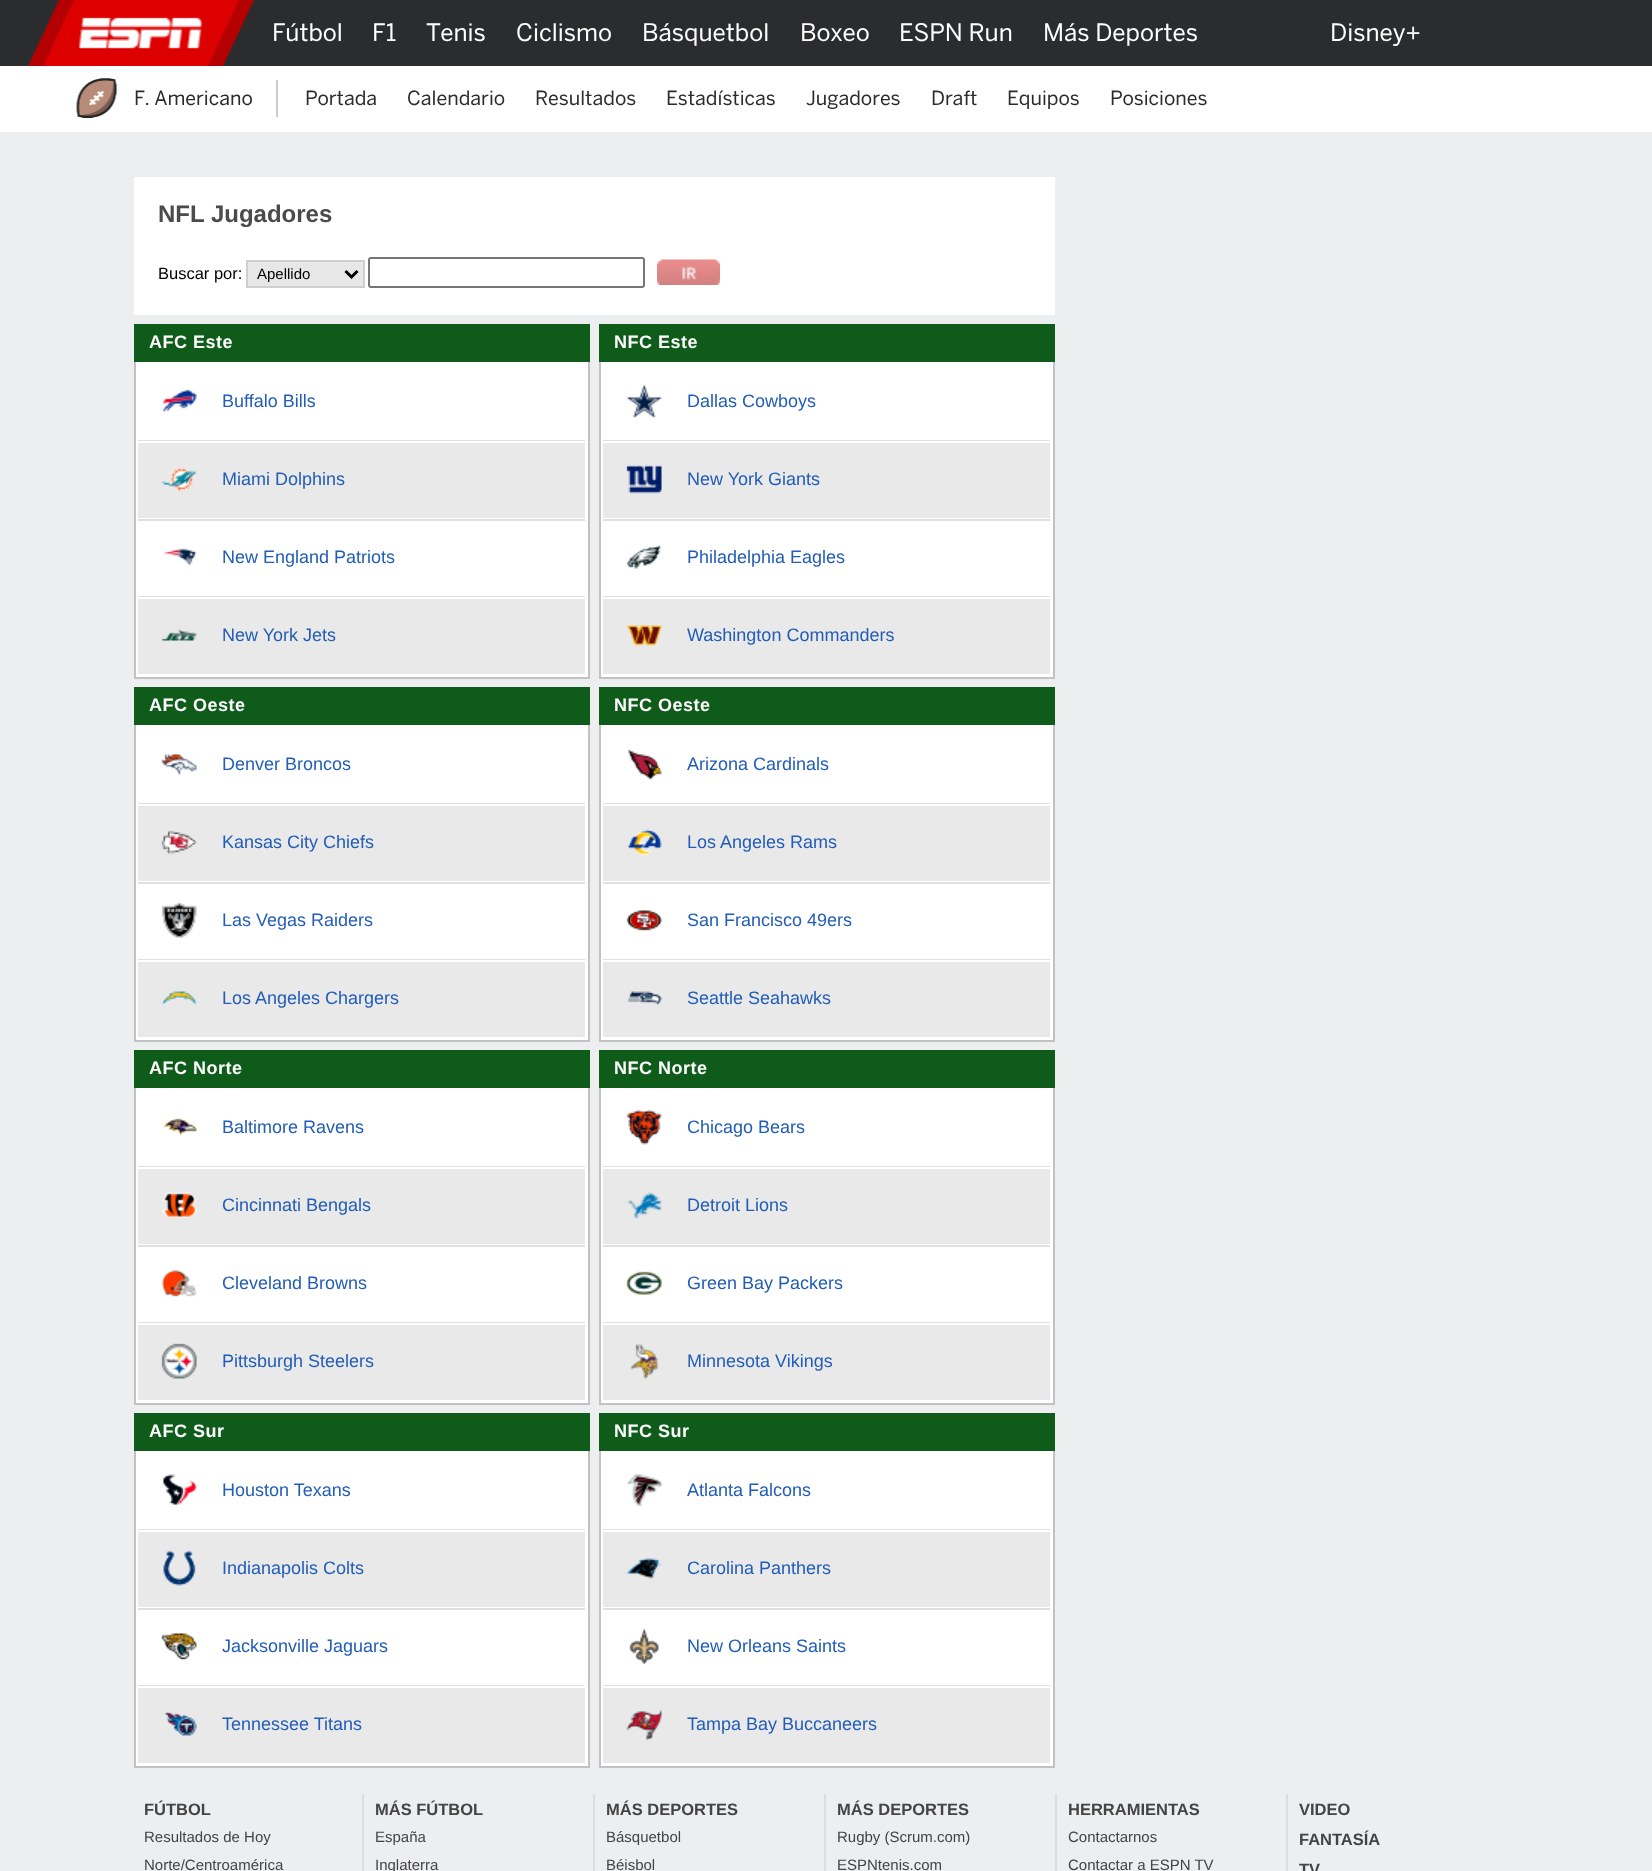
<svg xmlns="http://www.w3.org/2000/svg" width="1652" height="1871">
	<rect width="100%" height="100%" fill="#EDEEF0" />
	<rect x="0" y="66" width="1652" height="66" fill="#FFFFFF" />
	<rect x="0" y="0" width="1652" height="66" fill="#2B2C2D" />
	<path d="M59 0H254L223 66H28Z" fill="#B40000" />
	<path d="M74 0H239L208 66H43Z" fill="#DD0000" />
	<image x="78" y="17" width="125" height="32" href="assets/img1.png" />
	<g font-family="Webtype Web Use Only" font-size="24" fill="#FFFFFF">
		<text x="272" y="41">Fútbol</text>
		<text x="372" y="41">F1</text>
		<text x="426" y="41">Tenis</text>
		<text x="516" y="41">Ciclismo</text>
		<text x="642" y="41">Básquetbol</text>
		<text x="800" y="41">Boxeo</text>
		<text x="899" y="41">ESPN Run</text>
		<text x="1043" y="41">Más Deportes</text>
		<text x="1330" y="41">Disney+</text>
	</g>
	<image x="76" y="78" width="42" height="41" href="assets/img2.png" />
	<text x="134" y="105" font-family="Webtype Web Use Only" font-size="19.5" fill="#2B2C2D">F. Americano</text>
	<rect x="276" y="80" width="2" height="37" fill="#CBCCCE" />
	<g font-family="Webtype Web Use Only" font-size="19.5" fill="#2B2C2D">
		<text x="305" y="105">Portada</text>
		<text x="407" y="105">Calendario</text>
		<text x="535" y="105">Resultados</text>
		<text x="666" y="105">Estadísticas</text>
		<text x="806" y="105">Jugadores</text>
		<text x="931" y="105">Draft</text>
		<text x="1007" y="105">Equipos</text>
		<text x="1110" y="105">Posiciones</text>
	</g>
	<rect x="134" y="177" width="921" height="138" fill="#FFFFFF" />
	<text x="158" y="222" font-family="Liberation Sans" font-size="24" font-weight="700" fill="#4B4B4B">NFL Jugadores</text>
	<text x="158" y="279" font-family="Liberation Sans" font-size="16.5" fill="#000000">Buscar por:</text>
	<rect x="247" y="261" width="117" height="26" fill="#E7E7E7" stroke="#CFCFCF" stroke-width="2" />
	<path d="M345.5 271L351.5 277L357.5 271" fill="none" stroke="#000000" stroke-width="3" />
	<text x="257" y="279" font-family="Liberation Sans" font-size="15" fill="#000000">Apellido</text>
	<rect x="369" y="258" width="275" height="29" rx="2" fill="none" stroke="#767676" stroke-width="2" />
	<image x="657" y="259" width="63" height="26" href="assets/img3.png" />
	<rect x="134" y="324" width="456" height="38" fill="#0F5B1A" />
	<text x="149" y="348" font-family="Liberation Sans" font-size="18" font-weight="700" letter-spacing="0.5" fill="#FFFFFF">AFC Este</text>
	<rect x="136" y="362" width="452" height="315" fill="#FFFFFF" />
	<rect x="588" y="362" width="2" height="316" fill="#C2C2C2" />
	<rect x="134" y="677" width="456" height="2" fill="#C2C2C2" />
	<rect x="134" y="362" width="2" height="316" fill="#C2C2C2" />
	<rect x="138" y="440" width="447" height="1" fill="#E0E0E0" />
	<image x="162" y="389" width="35" height="24" href="assets/img4.png" />
	<text x="222" y="407" font-family="Liberation Sans" font-size="18" fill="#225DB7">Buffalo Bills</text>
	<rect x="138" y="443" width="447" height="75" fill="#E9E9E9" />
	<image x="161" y="467" width="36" height="25" href="assets/img5.png" />
	<text x="222" y="485" font-family="Liberation Sans" font-size="18" fill="#225DB7">Miami Dolphins</text>
	<rect x="138" y="519" width="447" height="2" fill="#E0E0E0" />
	<rect x="138" y="596" width="447" height="1" fill="#E0E0E0" />
	<image x="163" y="548" width="34" height="18" href="assets/img6.png" />
	<text x="222" y="563" font-family="Liberation Sans" font-size="18" fill="#225DB7">New England Patriots</text>
	<rect x="138" y="599" width="447" height="75" fill="#E9E9E9" />
	<image x="161" y="629" width="36" height="12" href="assets/img7.png" />
	<text x="222" y="641" font-family="Liberation Sans" font-size="18" fill="#225DB7">New York Jets</text>
	<rect x="599" y="324" width="456" height="38" fill="#0F5B1A" />
	<text x="614" y="348" font-family="Liberation Sans" font-size="18" font-weight="700" letter-spacing="0.5" fill="#FFFFFF">NFC Este</text>
	<rect x="601" y="362" width="452" height="315" fill="#FFFFFF" />
	<rect x="1053" y="362" width="2" height="316" fill="#C2C2C2" />
	<rect x="599" y="677" width="456" height="2" fill="#C2C2C2" />
	<rect x="599" y="362" width="2" height="316" fill="#C2C2C2" />
	<rect x="603" y="440" width="447" height="1" fill="#E0E0E0" />
	<image x="626" y="385" width="36" height="33" href="assets/img8.png" />
	<text x="687" y="407" font-family="Liberation Sans" font-size="18" fill="#225DB7">Dallas Cowboys</text>
	<rect x="603" y="443" width="447" height="75" fill="#E9E9E9" />
	<image x="626" y="464" width="36" height="30" href="assets/img9.png" />
	<text x="687" y="485" font-family="Liberation Sans" font-size="18" fill="#225DB7">New York Giants</text>
	<rect x="603" y="519" width="447" height="2" fill="#E0E0E0" />
	<rect x="603" y="596" width="447" height="1" fill="#E0E0E0" />
	<image x="626" y="545" width="36" height="24" href="assets/img10.png" />
	<text x="687" y="563" font-family="Liberation Sans" font-size="18" fill="#225DB7">Philadelphia Eagles</text>
	<rect x="603" y="599" width="447" height="75" fill="#E9E9E9" />
	<image x="626" y="625" width="36" height="21" href="assets/img11.png" />
	<text x="687" y="641" font-family="Liberation Sans" font-size="18" fill="#225DB7">Washington Commanders</text>
	<rect x="134" y="687" width="456" height="38" fill="#0F5B1A" />
	<text x="149" y="711" font-family="Liberation Sans" font-size="18" font-weight="700" letter-spacing="0.5" fill="#FFFFFF">AFC Oeste</text>
	<rect x="136" y="725" width="452" height="315" fill="#FFFFFF" />
	<rect x="588" y="725" width="2" height="316" fill="#C2C2C2" />
	<rect x="134" y="1040" width="456" height="2" fill="#C2C2C2" />
	<rect x="134" y="725" width="2" height="316" fill="#C2C2C2" />
	<rect x="138" y="803" width="447" height="1" fill="#E0E0E0" />
	<image x="161" y="753" width="36" height="23" href="assets/img12.png" />
	<text x="222" y="770" font-family="Liberation Sans" font-size="18" fill="#225DB7">Denver Broncos</text>
	<rect x="138" y="806" width="447" height="75" fill="#E9E9E9" />
	<image x="161" y="830" width="36" height="24" href="assets/img13.png" />
	<text x="222" y="848" font-family="Liberation Sans" font-size="18" fill="#225DB7">Kansas City Chiefs</text>
	<rect x="138" y="882" width="447" height="2" fill="#E0E0E0" />
	<rect x="138" y="959" width="447" height="1" fill="#E0E0E0" />
	<image x="161" y="902" width="36" height="36" href="assets/img14.png" />
	<text x="222" y="926" font-family="Liberation Sans" font-size="18" fill="#225DB7">Las Vegas Raiders</text>
	<rect x="138" y="962" width="447" height="75" fill="#E9E9E9" />
	<image x="161" y="990" width="36" height="15" href="assets/img15.png" />
	<text x="222" y="1004" font-family="Liberation Sans" font-size="18" fill="#225DB7">Los Angeles Chargers</text>
	<rect x="599" y="687" width="456" height="38" fill="#0F5B1A" />
	<text x="614" y="711" font-family="Liberation Sans" font-size="18" font-weight="700" letter-spacing="0.5" fill="#FFFFFF">NFC Oeste</text>
	<rect x="601" y="725" width="452" height="315" fill="#FFFFFF" />
	<rect x="1053" y="725" width="2" height="316" fill="#C2C2C2" />
	<rect x="599" y="1040" width="456" height="2" fill="#C2C2C2" />
	<rect x="599" y="725" width="2" height="316" fill="#C2C2C2" />
	<rect x="603" y="803" width="447" height="1" fill="#E0E0E0" />
	<image x="628" y="749" width="34" height="32" href="assets/img16.png" />
	<text x="687" y="770" font-family="Liberation Sans" font-size="18" fill="#225DB7">Arizona Cardinals</text>
	<rect x="603" y="806" width="447" height="75" fill="#E9E9E9" />
	<image x="627" y="829" width="35" height="27" href="assets/img17.png" />
	<text x="687" y="848" font-family="Liberation Sans" font-size="18" fill="#225DB7">Los Angeles Rams</text>
	<rect x="603" y="882" width="447" height="2" fill="#E0E0E0" />
	<rect x="603" y="959" width="447" height="1" fill="#E0E0E0" />
	<image x="626" y="910" width="36" height="21" href="assets/img18.png" />
	<text x="687" y="926" font-family="Liberation Sans" font-size="18" fill="#225DB7">San Francisco 49ers</text>
	<rect x="603" y="962" width="447" height="75" fill="#E9E9E9" />
	<image x="627" y="990" width="35" height="16" href="assets/img19.png" />
	<text x="687" y="1004" font-family="Liberation Sans" font-size="18" fill="#225DB7">Seattle Seahawks</text>
	<rect x="134" y="1050" width="456" height="38" fill="#0F5B1A" />
	<text x="149" y="1074" font-family="Liberation Sans" font-size="18" font-weight="700" letter-spacing="0.5" fill="#FFFFFF">AFC Norte</text>
	<rect x="136" y="1088" width="452" height="315" fill="#FFFFFF" />
	<rect x="588" y="1088" width="2" height="316" fill="#C2C2C2" />
	<rect x="134" y="1403" width="456" height="2" fill="#C2C2C2" />
	<rect x="134" y="1088" width="2" height="316" fill="#C2C2C2" />
	<rect x="138" y="1166" width="447" height="1" fill="#E0E0E0" />
	<image x="163" y="1118" width="34" height="18" href="assets/img20.png" />
	<text x="222" y="1133" font-family="Liberation Sans" font-size="18" fill="#225DB7">Baltimore Ravens</text>
	<rect x="138" y="1169" width="447" height="75" fill="#E9E9E9" />
	<image x="162" y="1192" width="35" height="26" href="assets/img21.png" />
	<text x="222" y="1211" font-family="Liberation Sans" font-size="18" fill="#225DB7">Cincinnati Bengals</text>
	<rect x="138" y="1245" width="447" height="2" fill="#E0E0E0" />
	<rect x="138" y="1322" width="447" height="1" fill="#E0E0E0" />
	<image x="161" y="1270" width="36" height="27" href="assets/img22.png" />
	<text x="222" y="1289" font-family="Liberation Sans" font-size="18" fill="#225DB7">Cleveland Browns</text>
	<rect x="138" y="1325" width="447" height="75" fill="#E9E9E9" />
	<image x="161" y="1343" width="36" height="36" href="assets/img23.png" />
	<text x="222" y="1367" font-family="Liberation Sans" font-size="18" fill="#225DB7">Pittsburgh Steelers</text>
	<rect x="599" y="1050" width="456" height="38" fill="#0F5B1A" />
	<text x="614" y="1074" font-family="Liberation Sans" font-size="18" font-weight="700" letter-spacing="0.5" fill="#FFFFFF">NFC Norte</text>
	<rect x="601" y="1088" width="452" height="315" fill="#FFFFFF" />
	<rect x="1053" y="1088" width="2" height="316" fill="#C2C2C2" />
	<rect x="599" y="1403" width="456" height="2" fill="#C2C2C2" />
	<rect x="599" y="1088" width="2" height="316" fill="#C2C2C2" />
	<rect x="603" y="1166" width="447" height="1" fill="#E0E0E0" />
	<image x="626" y="1109" width="36" height="36" href="assets/img24.png" />
	<text x="687" y="1133" font-family="Liberation Sans" font-size="18" fill="#225DB7">Chicago Bears</text>
	<rect x="603" y="1169" width="447" height="75" fill="#E9E9E9" />
	<image x="627" y="1192" width="35" height="27" href="assets/img25.png" />
	<text x="687" y="1211" font-family="Liberation Sans" font-size="18" fill="#225DB7">Detroit Lions</text>
	<rect x="603" y="1245" width="447" height="2" fill="#E0E0E0" />
	<rect x="603" y="1322" width="447" height="1" fill="#E0E0E0" />
	<image x="626" y="1271" width="36" height="24" href="assets/img26.png" />
	<text x="687" y="1289" font-family="Liberation Sans" font-size="18" fill="#225DB7">Green Bay Packers</text>
	<rect x="603" y="1325" width="447" height="75" fill="#E9E9E9" />
	<image x="630" y="1344" width="29" height="35" href="assets/img27.png" />
	<text x="687" y="1367" font-family="Liberation Sans" font-size="18" fill="#225DB7">Minnesota Vikings</text>
	<rect x="134" y="1413" width="456" height="38" fill="#0F5B1A" />
	<text x="149" y="1437" font-family="Liberation Sans" font-size="18" font-weight="700" letter-spacing="0.5" fill="#FFFFFF">AFC Sur</text>
	<rect x="136" y="1451" width="452" height="315" fill="#FFFFFF" />
	<rect x="588" y="1451" width="2" height="316" fill="#C2C2C2" />
	<rect x="134" y="1766" width="456" height="2" fill="#C2C2C2" />
	<rect x="134" y="1451" width="2" height="316" fill="#C2C2C2" />
	<rect x="138" y="1529" width="447" height="1" fill="#E0E0E0" />
	<image x="162" y="1474" width="35" height="32" href="assets/img28.png" />
	<text x="222" y="1496" font-family="Liberation Sans" font-size="18" fill="#225DB7">Houston Texans</text>
	<rect x="138" y="1532" width="447" height="75" fill="#E9E9E9" />
	<image x="162" y="1550" width="34" height="36" href="assets/img29.png" />
	<text x="222" y="1574" font-family="Liberation Sans" font-size="18" fill="#225DB7">Indianapolis Colts</text>
	<rect x="138" y="1608" width="447" height="2" fill="#E0E0E0" />
	<rect x="138" y="1685" width="447" height="1" fill="#E0E0E0" />
	<image x="161" y="1633" width="36" height="27" href="assets/img30.png" />
	<text x="222" y="1652" font-family="Liberation Sans" font-size="18" fill="#225DB7">Jacksonville Jaguars</text>
	<rect x="138" y="1688" width="447" height="75" fill="#E9E9E9" />
	<image x="163" y="1711" width="34" height="26" href="assets/img31.png" />
	<text x="222" y="1730" font-family="Liberation Sans" font-size="18" fill="#225DB7">Tennessee Titans</text>
	<rect x="599" y="1413" width="456" height="38" fill="#0F5B1A" />
	<text x="614" y="1437" font-family="Liberation Sans" font-size="18" font-weight="700" letter-spacing="0.5" fill="#FFFFFF">NFC Sur</text>
	<rect x="601" y="1451" width="452" height="315" fill="#FFFFFF" />
	<rect x="1053" y="1451" width="2" height="316" fill="#C2C2C2" />
	<rect x="599" y="1766" width="456" height="2" fill="#C2C2C2" />
	<rect x="599" y="1451" width="2" height="316" fill="#C2C2C2" />
	<rect x="603" y="1529" width="447" height="1" fill="#E0E0E0" />
	<image x="627" y="1473" width="35" height="34" href="assets/img32.png" />
	<text x="687" y="1496" font-family="Liberation Sans" font-size="18" fill="#225DB7">Atlanta Falcons</text>
	<rect x="603" y="1532" width="447" height="75" fill="#E9E9E9" />
	<image x="626" y="1558" width="36" height="21" href="assets/img33.png" />
	<text x="687" y="1574" font-family="Liberation Sans" font-size="18" fill="#225DB7">Carolina Panthers</text>
	<rect x="603" y="1608" width="447" height="2" fill="#E0E0E0" />
	<rect x="603" y="1685" width="447" height="1" fill="#E0E0E0" />
	<image x="629" y="1628" width="30" height="36" href="assets/img34.png" />
	<text x="687" y="1652" font-family="Liberation Sans" font-size="18" fill="#225DB7">New Orleans Saints</text>
	<rect x="603" y="1688" width="447" height="75" fill="#E9E9E9" />
	<image x="626" y="1709" width="36" height="32" href="assets/img35.png" />
	<text x="687" y="1730" font-family="Liberation Sans" font-size="18" fill="#225DB7">Tampa Bay Buccaneers</text>
	<rect x="362" y="1794" width="2" height="77" fill="#DDDDDD" />
	<text x="144" y="1815" font-family="Liberation Sans" font-size="16.5" font-weight="700" fill="#444444">FÚTBOL</text>
	<g font-family="Liberation Sans" font-size="15" fill="#444444">
		<text x="144" y="1842">Resultados de Hoy</text>
		<text x="144" y="1870">Norte/Centroamérica</text>
	</g>
	<rect x="593" y="1794" width="2" height="77" fill="#DDDDDD" />
	<text x="375" y="1815" font-family="Liberation Sans" font-size="16.5" font-weight="700" fill="#444444">MÁS FÚTBOL</text>
	<g font-family="Liberation Sans" font-size="15" fill="#444444">
		<text x="375" y="1842">España</text>
		<text x="375" y="1870">Inglaterra</text>
	</g>
	<rect x="824" y="1794" width="2" height="77" fill="#DDDDDD" />
	<text x="606" y="1815" font-family="Liberation Sans" font-size="16.5" font-weight="700" fill="#444444">MÁS DEPORTES</text>
	<g font-family="Liberation Sans" font-size="15" fill="#444444">
		<text x="606" y="1842">Básquetbol</text>
		<text x="606" y="1870">Béisbol</text>
	</g>
	<rect x="1055" y="1794" width="2" height="77" fill="#DDDDDD" />
	<text x="837" y="1815" font-family="Liberation Sans" font-size="16.5" font-weight="700" fill="#444444">MÁS DEPORTES</text>
	<g font-family="Liberation Sans" font-size="15" fill="#444444">
		<text x="837" y="1842">Rugby (Scrum.com)</text>
		<text x="837" y="1870">ESPNtenis.com</text>
	</g>
	<rect x="1286" y="1794" width="2" height="77" fill="#DDDDDD" />
	<text x="1068" y="1815" font-family="Liberation Sans" font-size="16.5" font-weight="700" fill="#444444">HERRAMIENTAS</text>
	<g font-family="Liberation Sans" font-size="15" fill="#444444">
		<text x="1068" y="1842">Contactarnos</text>
		<text x="1068" y="1870">Contactar a ESPN TV</text>
	</g>
	<g font-family="Liberation Sans" font-size="16.5" font-weight="700" fill="#444444">
		<text x="1299" y="1815">VIDEO</text>
		<text x="1299" y="1845">FANTASÍA</text>
		<text x="1299" y="1875">TV</text>
	</g>
</svg>
